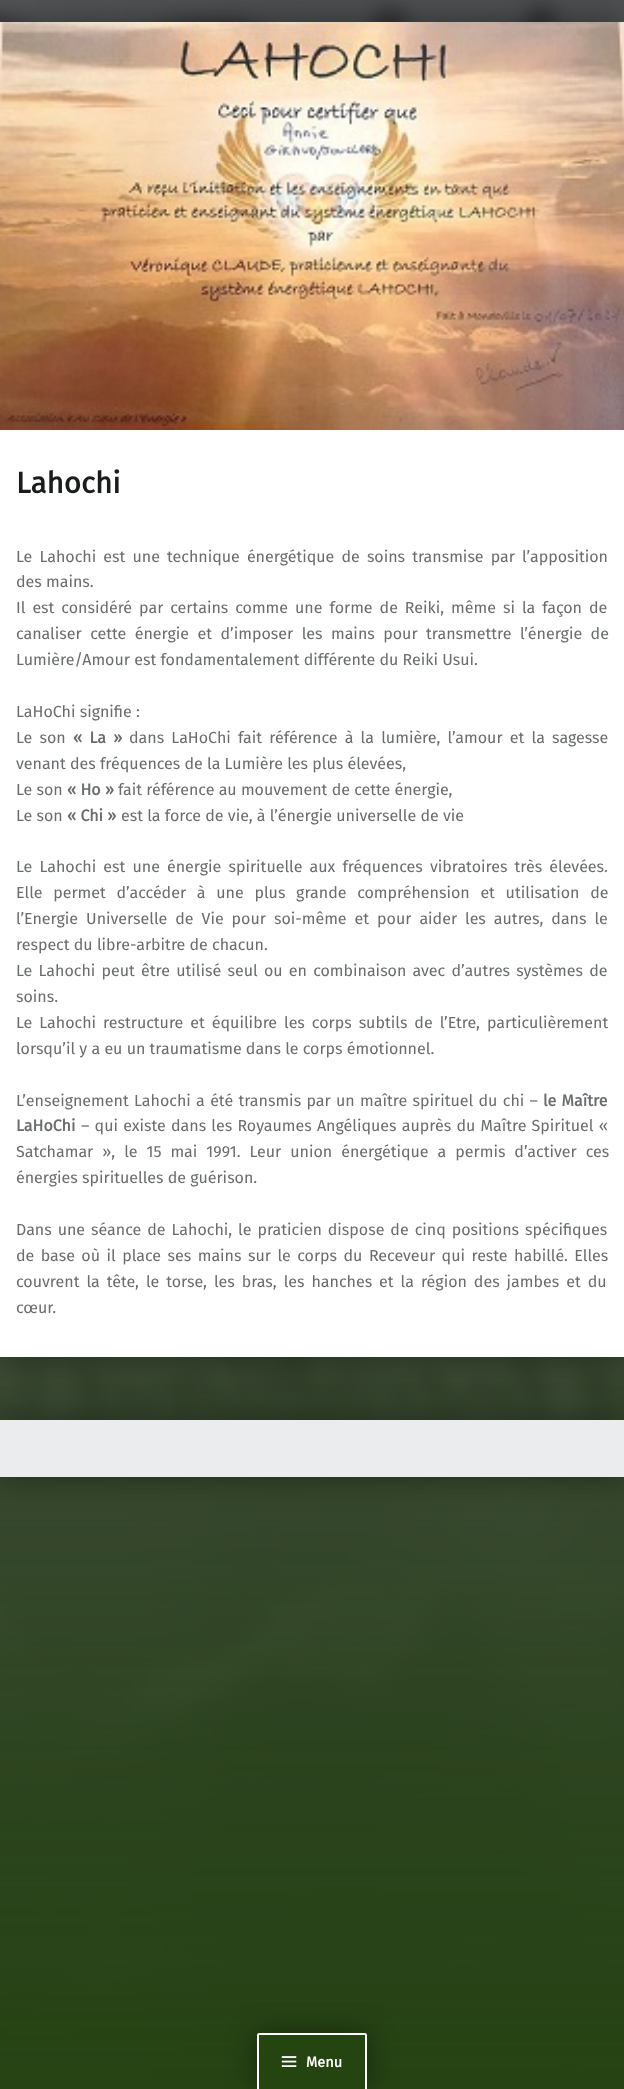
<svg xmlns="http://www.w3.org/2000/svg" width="624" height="2089">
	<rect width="100%" height="100%" fill="#FFFFFF" />
	<image x="0" y="0" width="624" height="2089" href="assets/img1.png" />
	<rect x="0" y="22" width="624" height="1335" fill="#000000" fill-opacity="0.4" filter="blur(16px)" />
	<rect x="0" y="430" width="624" height="927" fill="#FFFFFF" />
	<image x="0" y="22" width="624" height="408" href="assets/img2.png" />
	<text x="16" y="493" font-family="Fira Sans" font-size="29.5" font-weight="700" fill="#1A1C1E">Lahochi</text>
	<g font-family="Fira Sans" font-size="16" fill="#6A6C6E">
		<text x="16" y="562" word-spacing="2.9">Le Lahochi est une technique énergétique de soins transmise par l’apposition</text>
		<text x="16" y="587">des mains.</text>
		<text x="16" y="613" word-spacing="2.75">Il est considéré par certains comme une forme de Reiki, même si la façon de</text>
		<text x="16" y="639" word-spacing="4.25">canaliser cette énergie et d’imposer les mains pour transmettre l’énergie de</text>
		<text x="16" y="665">Lumière/Amour est fondamentalement différente du Reiki Usui.</text>
		<text x="16" y="717">LaHoChi signifie :</text>
		<text x="16" y="743" word-spacing="3">Le son</text>
	</g>
	<text x="73" y="743" word-spacing="3" font-family="Fira Sans" font-size="16" font-weight="700" fill="#6A6C6E">« La »</text>
	<g font-family="Fira Sans" font-size="16" fill="#6A6C6E">
		<text x="129" y="743" word-spacing="3">dans LaHoChi fait référence à la lumière, l’amour et la sagesse</text>
		<text x="16" y="769">venant des fréquences de la Lumière les plus élevées,</text>
		<text x="16" y="795">Le son</text>
	</g>
	<text x="67" y="795" font-family="Fira Sans" font-size="16" font-weight="700" fill="#6A6C6E">« Ho »</text>
	<g font-family="Fira Sans" font-size="16" fill="#6A6C6E">
		<text x="118" y="795">fait référence au mouvement de cette énergie,</text>
		<text x="16" y="821">Le son</text>
	</g>
	<text x="67" y="821" font-family="Fira Sans" font-size="16" font-weight="700" fill="#6A6C6E">« Chi »</text>
	<g font-family="Fira Sans" font-size="16" fill="#6A6C6E">
		<text x="121" y="821">est la force de vie, à l’énergie universelle de vie</text>
		<text x="16" y="872" word-spacing="2.9">Le Lahochi est une énergie spirituelle aux fréquences vibratoires très élevées.</text>
		<text x="16" y="898" word-spacing="6.5">Elle permet d’accéder à une plus grande compréhension et utilisation de</text>
		<text x="16" y="924" word-spacing="3.75">l’Energie Universelle de Vie pour soi-même et pour aider les autres, dans le</text>
		<text x="16" y="950">respect du libre-arbitre de chacun.</text>
		<text x="16" y="976" word-spacing="2">Le Lahochi peut être utilisé seul ou en combinaison avec d’autres systèmes de</text>
		<text x="16" y="1002">soins.</text>
		<text x="16" y="1028" word-spacing="2.75">Le Lahochi restructure et équilibre les corps subtils de l’Etre, particulièrement</text>
		<text x="16" y="1054">lorsqu’il y a eu un traumatisme dans le corps émotionnel.</text>
		<text x="16" y="1106" word-spacing="1.1">L’enseignement Lahochi a été transmis par un maître spirituel du chi –</text>
	</g>
	<g font-family="Fira Sans" font-size="16" font-weight="700" fill="#6A6C6E">
		<text x="543" y="1106" word-spacing="1">le Maître</text>
		<text x="16" y="1131">LaHoChi</text>
	</g>
	<g font-family="Fira Sans" font-size="16" fill="#6A6C6E">
		<text x="81" y="1131" word-spacing="1">– qui existe dans les Royaumes Angéliques auprès du Maître Spirituel «</text>
		<text x="16" y="1157" word-spacing="4.75">Satchamar », le 15 mai 1991. Leur union énergétique a permis d’activer ces</text>
		<text x="16" y="1183">énergies spirituelles de guérison.</text>
		<text x="16" y="1235" word-spacing="1.75">Dans une séance de Lahochi, le praticien dispose de cinq positions spécifiques</text>
		<text x="16" y="1261" word-spacing="2.25">de base où il place ses mains sur le corps du Receveur qui reste habillé. Elles</text>
		<text x="16" y="1287" word-spacing="2.75">couvrent la tête, le torse, les bras, les hanches et la région des jambes et du</text>
		<text x="16" y="1313">cœur.</text>
	</g>
	<rect x="0" y="1420" width="624" height="57" fill="#000000" fill-opacity="0.4" filter="blur(16px)" />
	<rect x="0" y="1420" width="624" height="57" fill="#EAECEE" />
	<rect x="257" y="2033" width="110" height="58" rx="2" fill="#000000" fill-opacity="0.4" filter="blur(14.5px)" />
	<rect x="258" y="2034" width="108" height="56" rx="1" fill="#244410" stroke="#FFFFFF" stroke-width="2" />
	<image x="281" y="2056" width="16" height="11" href="assets/img3.png" />
	<text x="306" y="2067" font-family="Fira Sans" font-size="14.5" font-weight="700" fill="#FFFFFF">Menu</text>
</svg>
